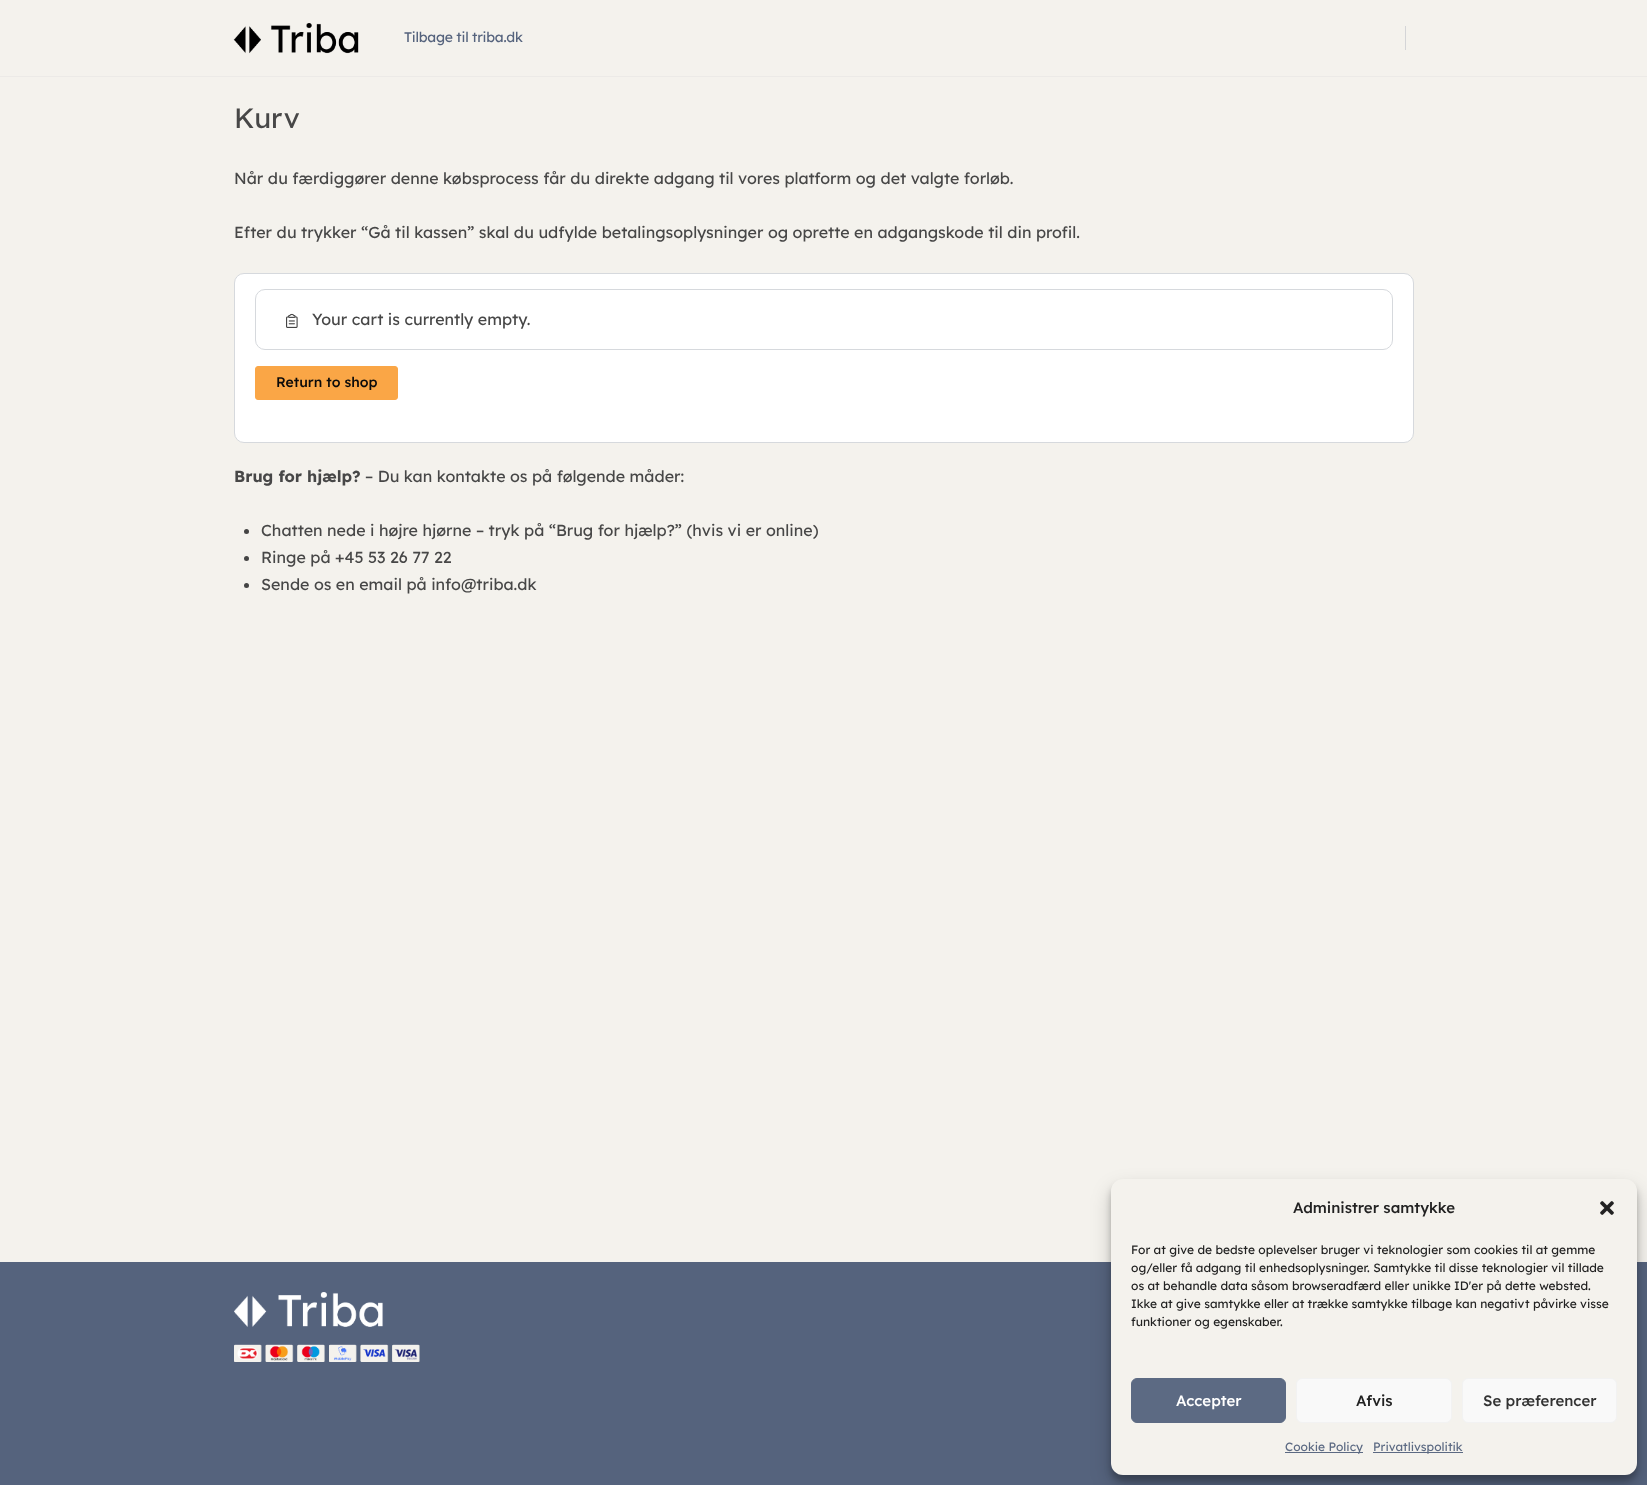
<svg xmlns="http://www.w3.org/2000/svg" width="1647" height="1485">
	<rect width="100%" height="100%" fill="#F4F2ED" />
	<rect x="0" y="76" width="1647" height="1" fill="#ECEAE7" />
	<image x="233" y="23" width="126" height="31" href="assets/img1.png" />
	<text x="404" y="42" font-family="Lexend" font-size="14" letter-spacing="-0.25" fill="#55637D">Tilbage til triba.dk</text>
	<rect x="1405" y="26" width="1" height="24" fill="#D4D5D7" />
	<text x="234" y="128" font-family="Lexend" font-size="28" fill="#474747">Kurv</text>
	<g font-family="Lexend" font-size="16" fill="#474747">
		<text x="234" y="184">Når du færdiggører denne købsprocess får du direkte adgang til vores platform og det valgte forløb.</text>
		<text x="234" y="238">Efter du trykker “Gå til kassen” skal du udfylde betalingsoplysninger og oprette en adgangskode til din profil.</text>
	</g>
	<rect x="234.5" y="273.5" width="1179" height="169" rx="9.5" fill="#FFFFFF" stroke="#D6D9DD" />
	<rect x="255.5" y="289.5" width="1137" height="60" rx="9.5" fill="none" stroke="#D6D9DD" />
	<image x="286" y="313" width="12" height="15" href="assets/img2.png" />
	<text x="312" y="325" font-family="Lexend" font-size="16" fill="#474747">Your cart is currently empty.</text>
	<rect x="255.5" y="366.5" width="142" height="33" rx="2.5" fill="#FAA646" stroke="#FAA646" />
	<text x="276" y="387" font-family="Lexend" font-size="14" font-weight="500" fill="#0A0A0A">Return to shop</text>
	<text x="234" y="482" font-family="Lexend" font-size="16" font-weight="700" fill="#474747">Brug for hjælp?</text>
	<text x="365" y="482" font-family="Lexend" font-size="16" fill="#474747">– Du kan kontakte os på følgende måder:</text>
	<circle cx="246.5" cy="531.5" r="2.5" fill="#444444" />
	<text x="261" y="536" font-family="Lexend" font-size="16" fill="#474747">Chatten nede i højre hjørne – tryk på “Brug for hjælp?” (hvis vi er online)</text>
	<circle cx="246.5" cy="558.5" r="2.5" fill="#444444" />
	<text x="261" y="563" font-family="Lexend" font-size="16" fill="#474747">Ringe på +45 53 26 77 22</text>
	<circle cx="246.5" cy="585.5" r="2.5" fill="#444444" />
	<text x="261" y="590" font-family="Lexend" font-size="16" fill="#474747">Sende os en email på info@triba.dk</text>
	<rect x="0" y="1262" width="1647" height="223" fill="#55637D" />
	<image x="234" y="1292" width="186" height="70" href="assets/img3.png" />
	<rect x="1111" y="1185" width="526" height="296" rx="12" fill="#000000" fill-opacity="0.23" filter="blur(3px)" />
	<rect x="1111" y="1189" width="526" height="296" rx="12" fill="#000000" fill-opacity="0.19" filter="blur(10px)" />
	<rect x="1111" y="1179" width="526" height="296" rx="12" fill="#F4F2ED" />
	<text x="1293" y="1213" font-family="Lexend" font-size="15" font-weight="500" fill="#222222">Administrer samtykke</text>
	<image x="1600" y="1201" width="14" height="14" href="assets/img4.png" />
	<g font-family="Lexend" font-size="12" fill="#222222">
		<text x="1131" y="1254">For at give de bedste oplevelser bruger vi teknologier som cookies til at gemme</text>
		<text x="1131" y="1272">og/eller få adgang til enhedsoplysninger. Samtykke til disse teknologier vil tillade</text>
		<text x="1131" y="1290">os at behandle data såsom browseradfærd eller unikke ID'er på dette websted.</text>
		<text x="1131" y="1308">Ikke at give samtykke eller at trække samtykke tilbage kan negativt påvirke visse</text>
		<text x="1131" y="1326">funktioner og egenskaber.</text>
	</g>
	<rect x="1131.5" y="1378.5" width="154" height="44" rx="5.5" fill="#5C6A83" stroke="#5C6A83" />
	<text x="1176" y="1406" font-family="Lexend" font-size="15" font-weight="500" fill="#FFFFFF">Accepter</text>
	<rect x="1296.5" y="1378.5" width="155" height="44" rx="5.5" fill="#F9F9F9" stroke="#F2F2F2" />
	<text x="1356" y="1406" font-family="Lexend" font-size="15" font-weight="500" fill="#222222">Afvis</text>
	<rect x="1462.5" y="1378.5" width="154" height="44" rx="5.5" fill="#F9F9F9" stroke="#F2F2F2" />
	<text x="1483" y="1406" font-family="Lexend" font-size="15" font-weight="500" fill="#333333">Se præferencer</text>
	<rect x="1285" y="1452" width="78" height="1" fill="#5C6A83" />
	<text x="1285" y="1451" font-family="Lexend" font-size="12" fill="#5C6A83">Cookie Policy</text>
	<rect x="1373" y="1452" width="90" height="1" fill="#5C6A83" />
	<text x="1373" y="1451" font-family="Lexend" font-size="12" fill="#5C6A83">Privatlivspolitik</text>
</svg>
